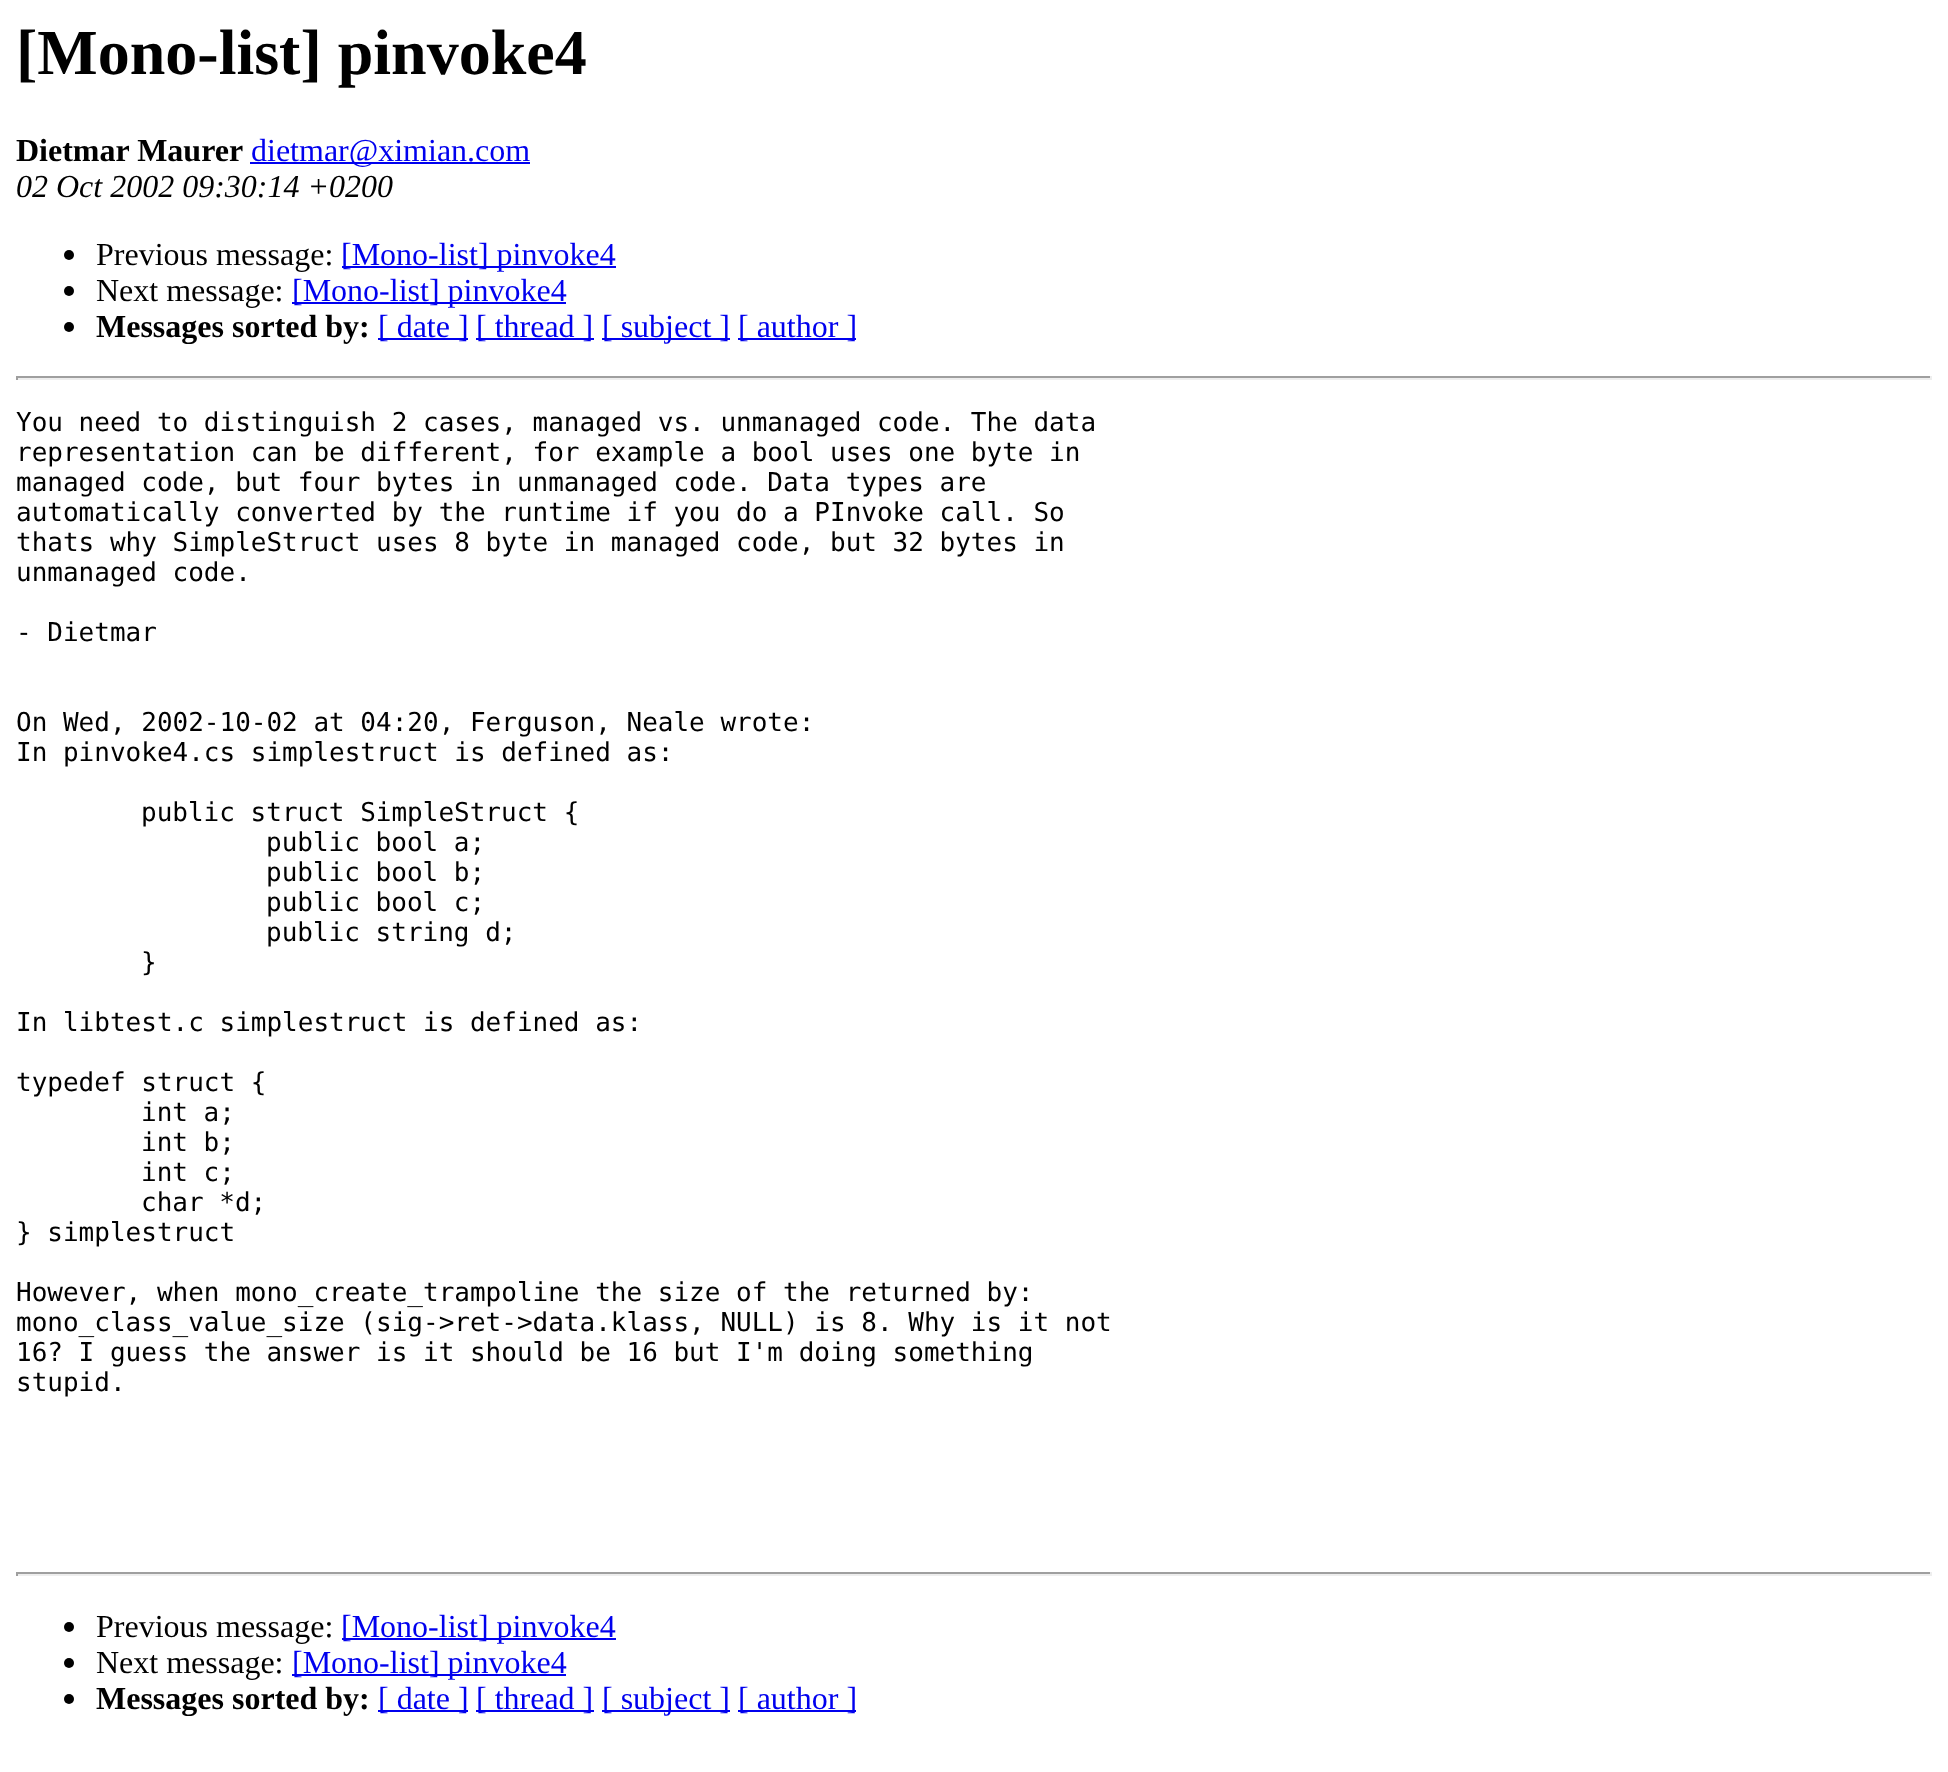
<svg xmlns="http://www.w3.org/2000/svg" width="1948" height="1772">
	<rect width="100%" height="100%" fill="#FFFFFF" />
	<text x="16" y="74" font-family="Liberation Serif" font-size="64" font-weight="700" fill="#000000">[Mono-list] pinvoke4</text>
	<text x="16" y="161" font-family="Liberation Serif" font-size="32" font-weight="700" fill="#000000">Dietmar Maurer</text>
	<rect x="250" y="162" width="280" height="2" fill="#0000EE" />
	<text x="251" y="161" font-family="Liberation Serif" font-size="32" fill="#0000EE">dietmar@ximian.com</text>
	<text x="16" y="197" font-family="Liberation Serif" font-size="32" font-style="italic" fill="#000000">02 Oct 2002 09:30:14 +0200</text>
	<circle cx="69" cy="255" r="5" fill="#000000" />
	<text x="96" y="265" font-family="Liberation Serif" font-size="32" fill="#000000">Previous message:</text>
	<rect x="342" y="266" width="274" height="2" fill="#0000EE" />
	<text x="341" y="265" font-family="Liberation Serif" font-size="32" fill="#0000EE">[Mono-list] pinvoke4</text>
	<circle cx="69" cy="291" r="5" fill="#000000" />
	<text x="96" y="301" font-family="Liberation Serif" font-size="32" fill="#000000">Next message:</text>
	<rect x="292" y="302" width="274" height="2" fill="#0000EE" />
	<text x="292" y="301" font-family="Liberation Serif" font-size="32" fill="#0000EE">[Mono-list] pinvoke4</text>
	<circle cx="69" cy="327" r="5" fill="#000000" />
	<text x="96" y="337" font-family="Liberation Serif" font-size="32" font-weight="700" fill="#000000">Messages sorted by:</text>
	<rect x="378" y="338" width="90" height="2" fill="#0000EE" />
	<text x="378" y="337" font-family="Liberation Serif" font-size="32" fill="#0000EE">[ date ]</text>
	<rect x="476" y="338" width="118" height="2" fill="#0000EE" />
	<text x="476" y="337" font-family="Liberation Serif" font-size="32" fill="#0000EE">[ thread ]</text>
	<rect x="602" y="338" width="128" height="2" fill="#0000EE" />
	<text x="602" y="337" font-family="Liberation Serif" font-size="32" fill="#0000EE">[ subject ]</text>
	<rect x="738" y="338" width="118" height="2" fill="#0000EE" />
	<text x="738" y="337" font-family="Liberation Serif" font-size="32" fill="#0000EE">[ author ]</text>
	<rect x="16" y="376" width="1916" height="2" fill="#9F9F9F" />
	<rect x="1930" y="376" width="2" height="4" fill="#EEEEEE" />
	<rect x="16" y="378" width="1916" height="2" fill="#EEEEEE" />
	<rect x="16" y="376" width="2" height="4" fill="#9F9F9F" />
	<g font-family="DejaVu Sans Mono" font-size="26" fill="#000000">
		<text x="16" y="431">You need to distinguish 2 cases, managed vs. unmanaged code. The data</text>
		<text x="16" y="461">representation can be different, for example a bool uses one byte in</text>
		<text x="16" y="491">managed code, but four bytes in unmanaged code. Data types are</text>
		<text x="16" y="521">automatically converted by the runtime if you do a PInvoke call. So</text>
		<text x="16" y="551">thats why SimpleStruct uses 8 byte in managed code, but 32 bytes in</text>
		<text x="16" y="581">unmanaged code.</text>
		<text x="16" y="641">- Dietmar</text>
		<text x="16" y="731">On Wed, 2002-10-02 at 04:20, Ferguson, Neale wrote:</text>
		<text x="16" y="761">In pinvoke4.cs simplestruct is defined as:</text>
		<text x="141" y="821">public struct SimpleStruct {</text>
		<text x="266" y="851">public bool a;</text>
		<text x="266" y="881">public bool b;</text>
		<text x="266" y="911">public bool c;</text>
		<text x="266" y="941">public string d;</text>
		<text x="141" y="971">}</text>
		<text x="16" y="1031">In libtest.c simplestruct is defined as:</text>
		<text x="16" y="1091">typedef struct {</text>
		<text x="141" y="1121">int a;</text>
		<text x="141" y="1151">int b;</text>
		<text x="141" y="1181">int c;</text>
		<text x="141" y="1211">char *d;</text>
		<text x="16" y="1241">} simplestruct</text>
		<text x="16" y="1301">However, when mono_create_trampoline the size of the returned by:</text>
		<text x="16" y="1331">mono_class_value_size (sig-&gt;ret-&gt;data.klass, NULL) is 8. Why is it not</text>
		<text x="16" y="1361">16? I guess the answer is it should be 16 but I'm doing something</text>
		<text x="16" y="1391">stupid.</text>
	</g>
	<rect x="16" y="1572" width="1916" height="2" fill="#9F9F9F" />
	<rect x="1930" y="1572" width="2" height="4" fill="#EEEEEE" />
	<rect x="16" y="1574" width="1916" height="2" fill="#EEEEEE" />
	<rect x="16" y="1572" width="2" height="4" fill="#9F9F9F" />
	<circle cx="69" cy="1627" r="5" fill="#000000" />
	<text x="96" y="1637" font-family="Liberation Serif" font-size="32" fill="#000000">Previous message:</text>
	<rect x="342" y="1638" width="274" height="2" fill="#0000EE" />
	<text x="341" y="1637" font-family="Liberation Serif" font-size="32" fill="#0000EE">[Mono-list] pinvoke4</text>
	<circle cx="69" cy="1663" r="5" fill="#000000" />
	<text x="96" y="1673" font-family="Liberation Serif" font-size="32" fill="#000000">Next message:</text>
	<rect x="292" y="1674" width="274" height="2" fill="#0000EE" />
	<text x="292" y="1673" font-family="Liberation Serif" font-size="32" fill="#0000EE">[Mono-list] pinvoke4</text>
	<circle cx="69" cy="1699" r="5" fill="#000000" />
	<text x="96" y="1709" font-family="Liberation Serif" font-size="32" font-weight="700" fill="#000000">Messages sorted by:</text>
	<rect x="378" y="1710" width="90" height="2" fill="#0000EE" />
	<text x="378" y="1709" font-family="Liberation Serif" font-size="32" fill="#0000EE">[ date ]</text>
	<rect x="476" y="1710" width="118" height="2" fill="#0000EE" />
	<text x="476" y="1709" font-family="Liberation Serif" font-size="32" fill="#0000EE">[ thread ]</text>
	<rect x="602" y="1710" width="128" height="2" fill="#0000EE" />
	<text x="602" y="1709" font-family="Liberation Serif" font-size="32" fill="#0000EE">[ subject ]</text>
	<rect x="738" y="1710" width="118" height="2" fill="#0000EE" />
	<text x="738" y="1709" font-family="Liberation Serif" font-size="32" fill="#0000EE">[ author ]</text>
</svg>
